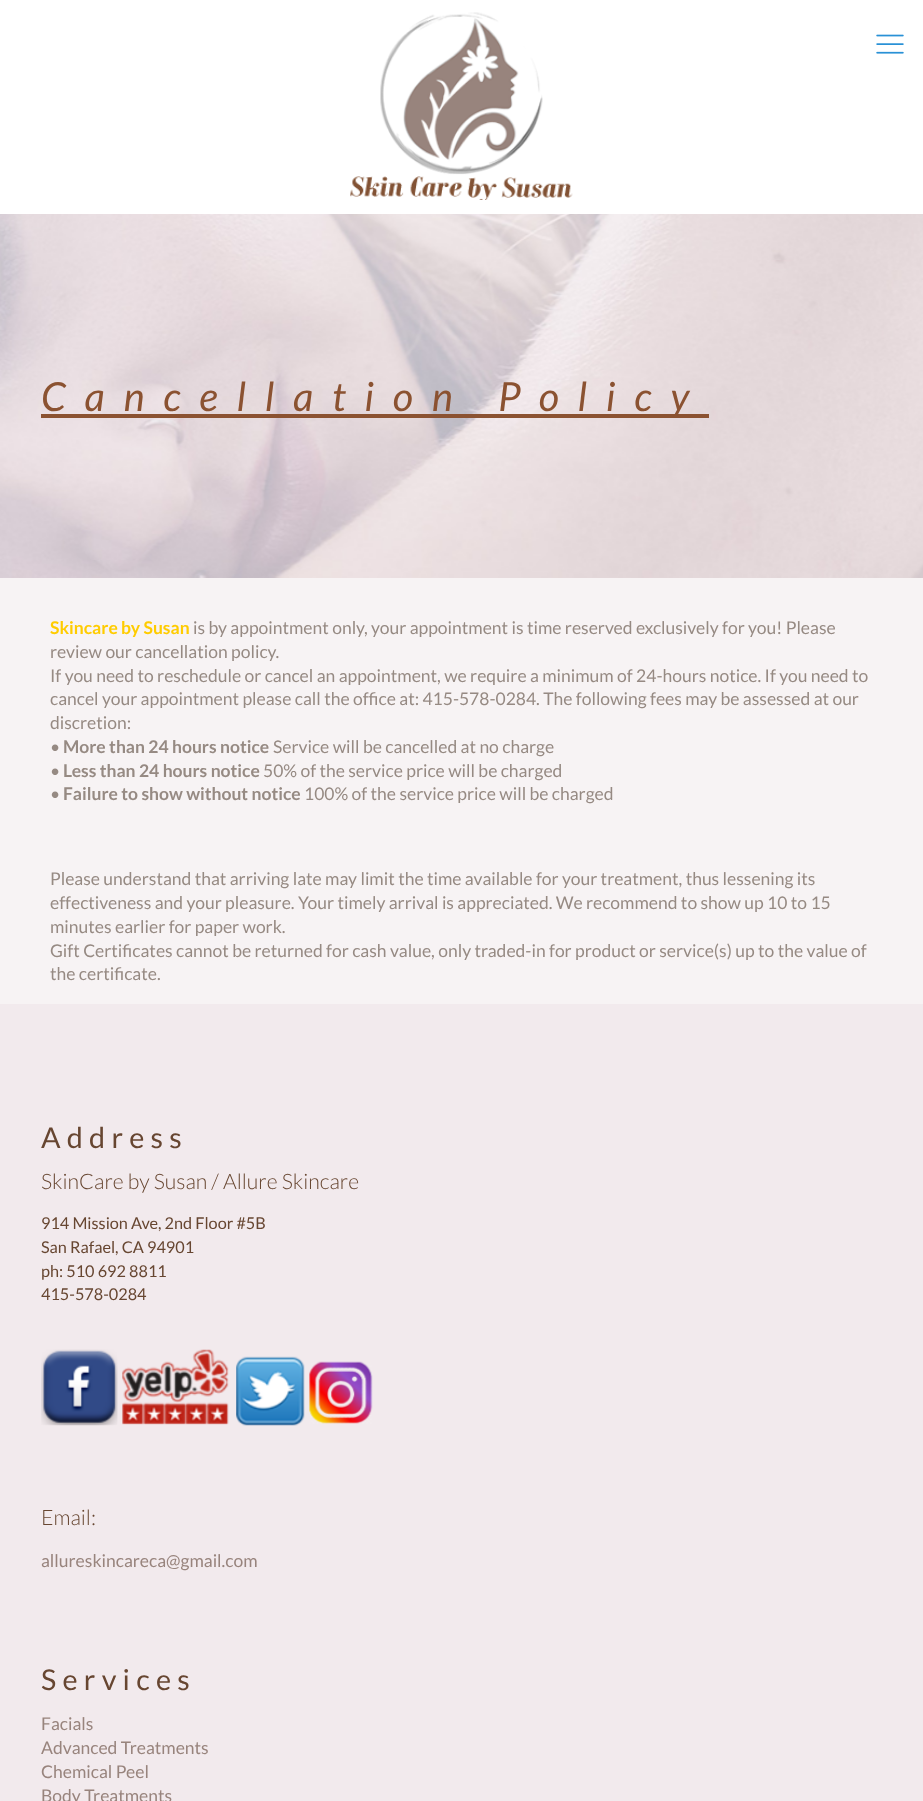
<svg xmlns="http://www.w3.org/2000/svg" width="923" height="1801">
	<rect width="100%" height="100%" fill="#F7F3F4" />
	<rect x="0" y="0" width="923" height="214" fill="#FFFFFF" />
	<image x="350" y="12" width="223" height="188" href="assets/img1.png" />
	<image x="876" y="34" width="28" height="20" href="assets/img2.png" />
	<image x="0" y="214" width="923" height="364" href="assets/img3.png" />
	<rect x="41" y="414" width="668" height="4" fill="#8B5231" />
	<text x="41" y="411" font-family="Lato" font-size="40" font-style="italic" letter-spacing="18.75" fill="#8B5231">Cancellation Policy</text>
	<text x="50" y="634" font-family="Lato" font-size="17.5" font-weight="700" fill="#FFCC00">Skincare by Susan</text>
	<g font-family="Lato" font-size="17.5" fill="#968A83">
		<text x="193" y="634">is by appointment only, your appointment is time reserved exclusively for you! Please</text>
		<text x="50" y="658">review our cancellation policy.</text>
		<text x="50" y="682">If you need to reschedule or cancel an appointment, we require a minimum of 24-hours notice. If you need to</text>
		<text x="50" y="705">cancel your appointment please call the office at: 415-578-0284. The following fees may be assessed at our</text>
		<text x="50" y="729">discretion:</text>
		<text x="50" y="753">•</text>
	</g>
	<text x="63" y="753" font-family="Lato" font-size="17.5" font-weight="700" fill="#968A83">More than 24 hours notice</text>
	<g font-family="Lato" font-size="17.5" fill="#968A83">
		<text x="273" y="753">Service will be cancelled at no charge</text>
		<text x="50" y="777">•</text>
	</g>
	<text x="63" y="777" font-family="Lato" font-size="17.5" font-weight="700" fill="#968A83">Less than 24 hours notice</text>
	<g font-family="Lato" font-size="17.5" fill="#968A83">
		<text x="263" y="777">50% of the service price will be charged</text>
		<text x="50" y="800">•</text>
	</g>
	<text x="63" y="800" font-family="Lato" font-size="17.5" font-weight="700" fill="#968A83">Failure to show without notice</text>
	<g font-family="Lato" font-size="17.5" fill="#968A83">
		<text x="304" y="800">100% of the service price will be charged</text>
		<text x="50" y="885">Please understand that arriving late may limit the time available for your treatment, thus lessening its</text>
		<text x="50" y="909">effectiveness and your pleasure. Your timely arrival is appreciated. We recommend to show up 10 to 15</text>
		<text x="50" y="933">minutes earlier for paper work.</text>
		<text x="50" y="957">Gift Certificates cannot be returned for cash value, only traded-in for product or service(s) up to the value of</text>
		<text x="50" y="980">the certificate.</text>
	</g>
	<rect x="0" y="1004" width="923" height="797" fill="#F2EAED" />
	<text x="41" y="1148" font-family="Lato" font-size="28.75" letter-spacing="6.25" fill="#674631">Address</text>
	<text x="41" y="1189" font-family="Lato" font-size="21.25" font-weight="300" fill="#674631">SkinCare by Susan / Allure Skincare</text>
	<g font-family="Lato" font-size="16.25" fill="#674631">
		<text x="41" y="1229">914 Mission Ave, 2nd Floor #5B</text>
		<text x="41" y="1253">San Rafael, CA 94901</text>
		<text x="41" y="1277">ph: 510 692 8811</text>
		<text x="41" y="1300">415-578-0284</text>
	</g>
	<image x="41" y="1349" width="77" height="77" href="assets/img4.png" />
	<image x="122" y="1349" width="107" height="76" href="assets/img5.png" />
	<image x="236" y="1356" width="69" height="70" href="assets/img6.png" />
	<image x="309" y="1361" width="64" height="63" href="assets/img7.png" />
	<text x="41" y="1525" font-family="Lato" font-size="21.25" font-weight="300" fill="#674631">Email:</text>
	<text x="41" y="1567" font-family="Lato" font-size="17.5" fill="#98847D">allureskincareca@gmail.com</text>
	<text x="41" y="1690" font-family="Lato" font-size="28.75" letter-spacing="6.25" fill="#674631">Services</text>
	<g font-family="Lato" font-size="17.5" fill="#98847D">
		<text x="41" y="1730">Facials</text>
		<text x="41" y="1754">Advanced Treatments</text>
		<text x="41" y="1778">Chemical Peel</text>
		<text x="41" y="1802">Body Treatments</text>
	</g>
</svg>
